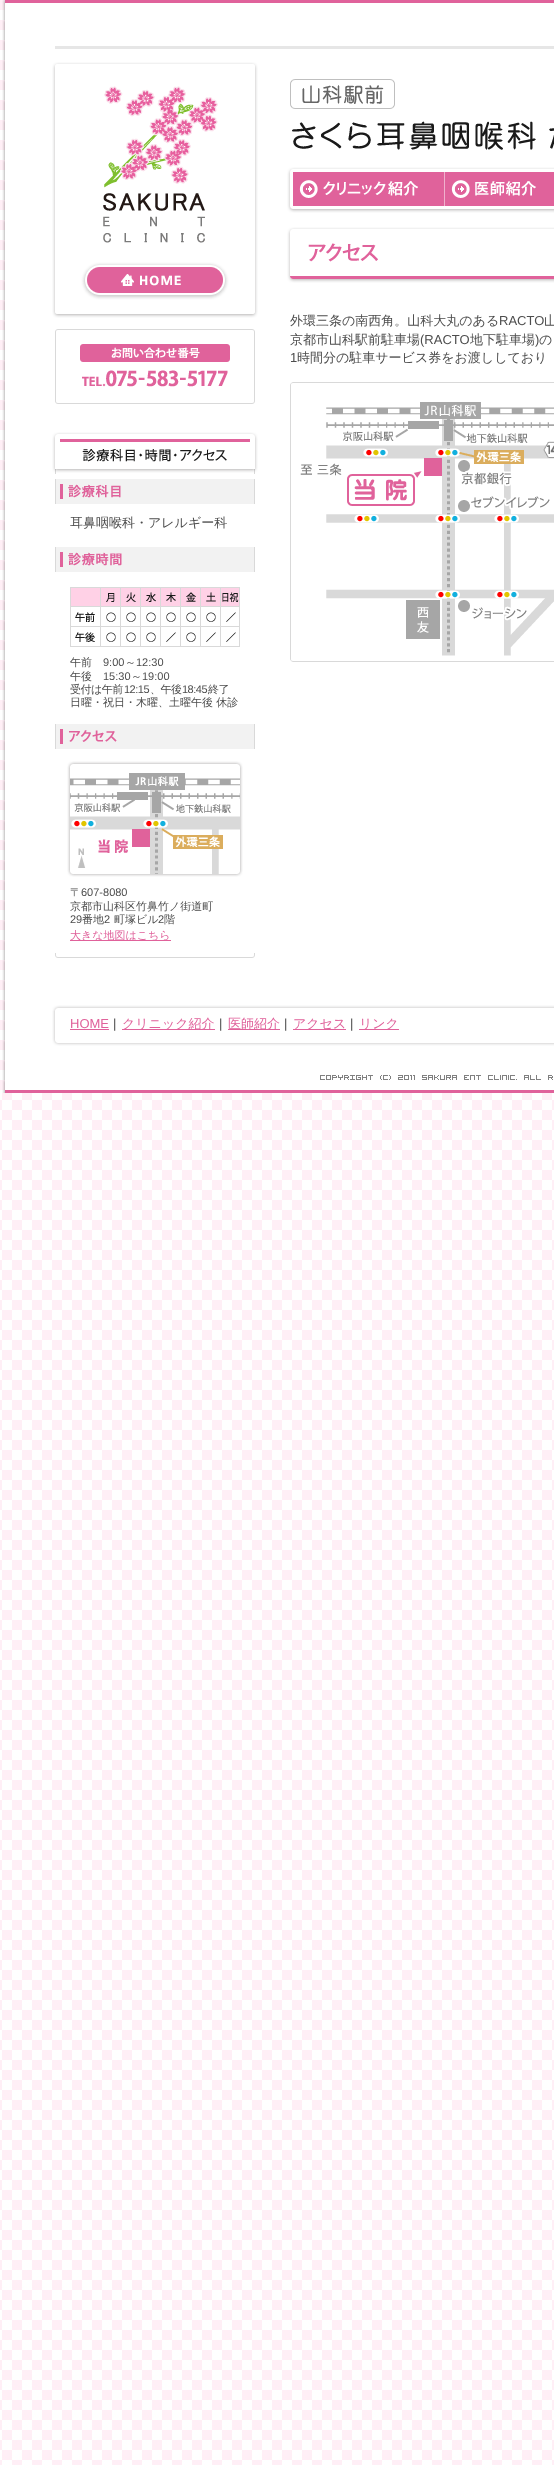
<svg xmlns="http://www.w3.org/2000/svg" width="554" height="2465">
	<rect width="100%" height="100%" fill="#FFFFFF" />
	<image x="0" y="0" width="554" height="2465" href="assets/img1.png" />
	<image x="2" y="0" width="552" height="1093" href="assets/img2.png" />
	<rect x="5" y="0" width="549" height="3" fill="#E0629B" />
	<rect x="55" y="46" width="499" height="3" fill="#E6E6E6" />
	<image x="290" y="79" width="264" height="71" href="assets/img3.png" />
	<image x="287" y="167" width="267" height="46" href="assets/img4.png" />
	<image x="293" y="172" width="152" height="34" href="assets/img5.png" />
	<image x="445" y="172" width="109" height="34" href="assets/img6.png" />
	<image x="287" y="227" width="267" height="56" href="assets/img7.png" />
	<text x="290" y="325" font-family="WenQuanYi Zen Hei" font-size="13" font-weight="500" fill="#4D4D4D">外環三条の南西角。山科大丸のある</text>
	<text x="499" y="325" font-family="Liberation Sans" font-size="13" fill="#4D4D4D">RACTO</text>
	<g font-family="WenQuanYi Zen Hei" font-size="13" font-weight="500" fill="#4D4D4D">
		<text x="544" y="325">山</text>
		<text x="290" y="344">京都市山科駅前駐車場</text>
	</g>
	<text x="420" y="344" font-family="Liberation Sans" font-size="13" fill="#4D4D4D">(RACTO</text>
	<text x="470" y="344" font-family="WenQuanYi Zen Hei" font-size="13" font-weight="500" fill="#4D4D4D">地下駐車場</text>
	<text x="535" y="344" font-family="Liberation Sans" font-size="13" fill="#4D4D4D">)</text>
	<text x="539" y="344" font-family="WenQuanYi Zen Hei" font-size="13" font-weight="500" fill="#4D4D4D">の</text>
	<text x="290" y="362" font-family="Liberation Sans" font-size="13" fill="#4D4D4D">1</text>
	<text x="297" y="362" font-family="WenQuanYi Zen Hei" font-size="13" font-weight="500" fill="#4D4D4D">時間分の駐車サービス券をお渡ししており</text>
	<image x="290" y="382" width="264" height="280" href="assets/img8.png" />
	<image x="52" y="62" width="206" height="256" href="assets/img9.png" />
	<image x="55" y="329" width="200" height="75" href="assets/img10.png" />
	<image x="52" y="432" width="206" height="42" href="assets/img11.png" />
	<image x="55" y="479" width="200" height="25" href="assets/img12.png" />
	<text x="70" y="527" font-family="WenQuanYi Zen Hei" font-size="13" font-weight="500" fill="#4D4D4D">耳鼻咽喉科・アレルギー科</text>
	<image x="55" y="547" width="200" height="25" href="assets/img13.png" />
	<image x="70" y="587" width="170" height="60" href="assets/img14.png" />
	<text x="70" y="666" font-family="WenQuanYi Zen Hei" font-size="11" font-weight="500" fill="#4D4D4D">午前</text>
	<text x="103" y="666" font-family="Liberation Sans" font-size="11" fill="#4D4D4D">9:00</text>
	<text x="125" y="666" font-family="WenQuanYi Zen Hei" font-size="11" font-weight="500" fill="#4D4D4D">～</text>
	<text x="136" y="666" font-family="Liberation Sans" font-size="11" fill="#4D4D4D">12:30</text>
	<text x="70" y="680" font-family="WenQuanYi Zen Hei" font-size="11" font-weight="500" fill="#4D4D4D">午後</text>
	<text x="103" y="680" font-family="Liberation Sans" font-size="11" fill="#4D4D4D">15:30</text>
	<text x="131" y="680" font-family="WenQuanYi Zen Hei" font-size="11" font-weight="500" fill="#4D4D4D">～</text>
	<text x="142" y="680" font-family="Liberation Sans" font-size="11" fill="#4D4D4D">19:00</text>
	<text x="70" y="693" font-family="WenQuanYi Zen Hei" font-size="11" font-weight="500" letter-spacing="-0.5" fill="#4D4D4D">受付は午前</text>
	<text x="124" y="693" font-family="Liberation Sans" font-size="11" letter-spacing="-0.5" fill="#4D4D4D">12:15</text>
	<text x="150" y="693" font-family="WenQuanYi Zen Hei" font-size="11" font-weight="500" letter-spacing="-0.5" fill="#4D4D4D">、午後</text>
	<text x="182" y="693" font-family="Liberation Sans" font-size="11" letter-spacing="-0.5" fill="#4D4D4D">18:45</text>
	<text x="208" y="693" font-family="WenQuanYi Zen Hei" font-size="11" font-weight="500" letter-spacing="-0.5" fill="#4D4D4D">終了</text>
	<text x="70" y="706" font-family="WenQuanYi Zen Hei" font-size="11" font-weight="500" fill="#4D4D4D">日曜・祝日・木曜、土曜午後 休診</text>
	<image x="55" y="953" width="200" height="5" href="assets/img15.png" />
	<image x="55" y="724" width="200" height="25" href="assets/img16.png" />
	<image x="67" y="761" width="176" height="116" href="assets/img17.png" />
	<text x="70" y="896" font-family="WenQuanYi Zen Hei" font-size="11" font-weight="500" fill="#4D4D4D">〒</text>
	<text x="81" y="896" font-family="Liberation Sans" font-size="11" fill="#4D4D4D">607-8080</text>
	<text x="70" y="910" font-family="WenQuanYi Zen Hei" font-size="11" font-weight="500" fill="#4D4D4D">京都市山科区竹鼻竹ノ街道町</text>
	<text x="70" y="923" font-family="Liberation Sans" font-size="11" fill="#4D4D4D">29</text>
	<text x="82" y="923" font-family="WenQuanYi Zen Hei" font-size="11" font-weight="500" fill="#4D4D4D">番地</text>
	<text x="104" y="923" font-family="Liberation Sans" font-size="11" fill="#4D4D4D">2</text>
	<text x="114" y="923" font-family="WenQuanYi Zen Hei" font-size="11" font-weight="500" fill="#4D4D4D">町塚ビル</text>
	<text x="158" y="923" font-family="Liberation Sans" font-size="11" fill="#4D4D4D">2</text>
	<text x="164" y="923" font-family="WenQuanYi Zen Hei" font-size="11" font-weight="500" fill="#4D4D4D">階</text>
	<rect x="70" y="940" width="101" height="1" fill="#E0629B" />
	<text x="70" y="939" font-family="WenQuanYi Zen Hei" font-size="11" font-weight="500" fill="#E0629B">大きな地図はこちら</text>
	<image x="52" y="1011" width="502" height="35" href="assets/img18.png" />
	<image x="52" y="1003" width="502" height="8" href="assets/img19.png" />
	<text x="70" y="1028" font-family="Liberation Sans" font-size="13" fill="#E0629B">HOME</text>
	<rect x="70" y="1029" width="39" height="1" fill="#E0629B" />
	<text x="113" y="1028" font-family="Liberation Sans" font-size="13" fill="#4D4D4D">|</text>
	<rect x="122" y="1029" width="93" height="1" fill="#E0629B" />
	<text x="122" y="1028" font-family="WenQuanYi Zen Hei" font-size="13" font-weight="500" fill="#E0629B">クリニック紹介</text>
	<text x="219" y="1028" font-family="Liberation Sans" font-size="13" fill="#4D4D4D">|</text>
	<rect x="228" y="1029" width="52" height="1" fill="#E0629B" />
	<text x="228" y="1028" font-family="WenQuanYi Zen Hei" font-size="13" font-weight="500" fill="#E0629B">医師紹介</text>
	<text x="284" y="1028" font-family="Liberation Sans" font-size="13" fill="#4D4D4D">|</text>
	<rect x="293" y="1029" width="53" height="1" fill="#E0629B" />
	<text x="293" y="1028" font-family="WenQuanYi Zen Hei" font-size="13" font-weight="500" fill="#E0629B">アクセス</text>
	<text x="350" y="1028" font-family="Liberation Sans" font-size="13" fill="#4D4D4D">|</text>
	<rect x="359" y="1029" width="40" height="1" fill="#E0629B" />
	<text x="359" y="1028" font-family="WenQuanYi Zen Hei" font-size="13" font-weight="500" fill="#E0629B">リンク</text>
	<rect x="5" y="1090" width="549" height="3" fill="#E0629B" />
	<image x="320" y="1075" width="233" height="5" href="assets/img20.png" />
</svg>
